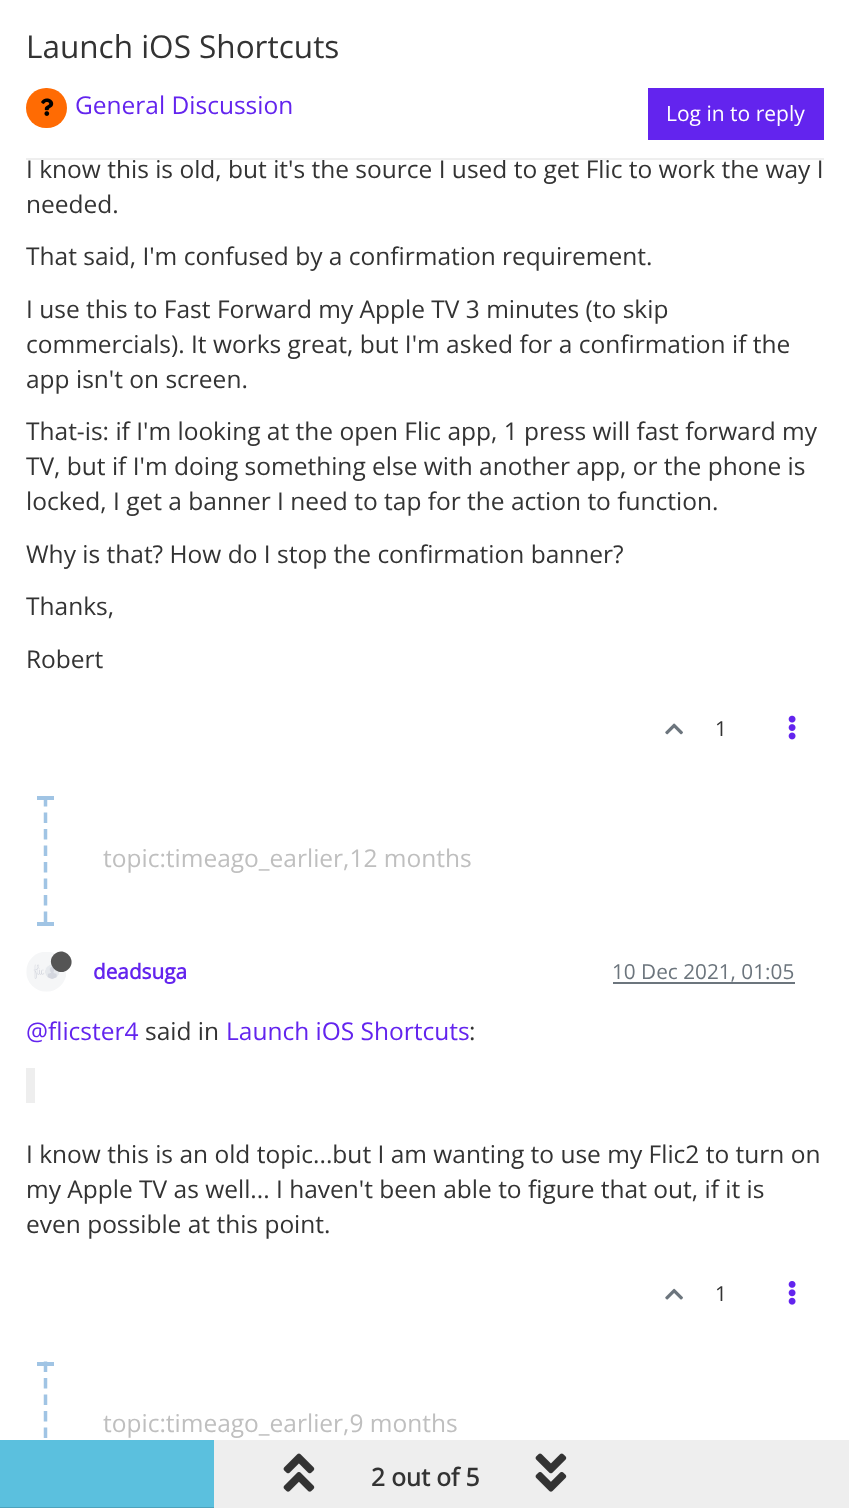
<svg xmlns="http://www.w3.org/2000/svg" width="849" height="1508">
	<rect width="100%" height="100%" fill="#FFFFFF" />
	<text x="26" y="58" font-family="Open Sans" font-size="31.5" fill="#333333">Launch iOS Shortcuts</text>
	<text x="26" y="178" font-family="Open Sans" font-size="24.5" fill="#333333">I know this is old, but it's the source I used to get Flic to work the way I</text>
	<rect x="26" y="158" width="798" height="2" fill="#EEEEEE" />
	<rect x="26" y="88" width="41" height="40" rx="20" fill="#FF6B03" />
	<image x="41" y="98" width="13" height="18" href="assets/img1.png" />
	<text x="75" y="114" font-family="Open Sans" font-size="24.5" fill="#6324EE">General Discussion</text>
	<rect x="648" y="88" width="176" height="52" fill="#6324EE" />
	<text x="666" y="121" font-family="Open Sans" font-size="21" fill="#FFFFFF">Log in to reply</text>
	<g font-family="Open Sans" font-size="24.5" fill="#333333">
		<text x="26" y="213">needed.</text>
		<text x="26" y="265">That said, I'm confused by a confirmation requirement.</text>
		<text x="26" y="318">I use this to Fast Forward my Apple TV 3 minutes (to skip</text>
		<text x="26" y="353">commercials). It works great, but I'm asked for a confirmation if the</text>
		<text x="26" y="388">app isn't on screen.</text>
		<text x="26" y="440">That-is: if I'm looking at the open Flic app, 1 press will fast forward my</text>
		<text x="26" y="475">TV, but if I'm doing something else with another app, or the phone is</text>
		<text x="26" y="510">locked, I get a banner I need to tap for the action to function.</text>
		<text x="26" y="563">Why is that? How do I stop the confirmation banner?</text>
		<text x="26" y="615">Thanks,</text>
		<text x="26" y="668">Robert</text>
	</g>
	<image x="665" y="723" width="18" height="12" href="assets/img2.png" />
	<text x="715" y="736" font-family="Open Sans" font-size="20.75" fill="#333333">1</text>
	<image x="788" y="715" width="8" height="25" href="assets/img3.png" />
	<path d="M45.5 796V922" fill="none" stroke="#A0C4E4" stroke-width="3.5" stroke-dasharray="10.5 6" />
	<rect x="37" y="796" width="17" height="4" fill="#A0C4E4" />
	<text x="103" y="867" font-family="Open Sans" font-size="24.5" fill="#BFBFBF">topic:timeago_earlier,12 months</text>
	<rect x="37" y="922" width="17" height="4" fill="#A0C4E4" />
	<image x="26" y="952" width="40" height="40" href="assets/img4.png" />
	<path d="M54 954.5C63.5 945 78 959.5 68.5 969C59 978.5 44.5 964 54 954.5Z" fill="#555555" />
	<text x="93" y="979" font-family="Open Sans" font-size="20.75" font-weight="700" fill="#6324EE">deadsuga</text>
	<text x="612" y="979" font-family="Open Sans" font-size="20.75" fill="#6C757D">10 Dec 2021, 01:05</text>
	<rect x="613" y="982" width="182" height="2" fill="#6C757D" />
	<text x="26" y="1040" font-family="Open Sans" font-size="24.5" fill="#6324EE">@flicster4</text>
	<text x="145" y="1040" font-family="Open Sans" font-size="24.5" fill="#333333">said in</text>
	<text x="226" y="1040" font-family="Open Sans" font-size="24.5" fill="#6324EE">Launch iOS Shortcuts</text>
	<text x="469" y="1040" font-family="Open Sans" font-size="24.5" fill="#333333">:</text>
	<rect x="26" y="1068" width="9" height="35" fill="#EEEEEE" />
	<g font-family="Open Sans" font-size="24.5" fill="#333333">
		<text x="26" y="1163">I know this is an old topic...but I am wanting to use my Flic2 to turn on</text>
		<text x="26" y="1198">my Apple TV as well... I haven't been able to figure that out, if it is</text>
		<text x="26" y="1233">even possible at this point.</text>
	</g>
	<image x="665" y="1288" width="18" height="12" href="assets/img5.png" />
	<text x="715" y="1301" font-family="Open Sans" font-size="20.75" fill="#333333">1</text>
	<image x="788" y="1281" width="8" height="24" href="assets/img6.png" />
	<path d="M45.5 1361.5V1487.5" fill="none" stroke="#A0C4E4" stroke-width="3.5" stroke-dasharray="10.5 6" />
	<rect x="37" y="1362" width="17" height="4" fill="#A0C4E4" />
	<text x="103" y="1432" font-family="Open Sans" font-size="24.5" fill="#BFBFBF">topic:timeago_earlier,9 months</text>
	<rect x="214" y="1440" width="635" height="68" fill="#EEEEEE" />
	<rect x="0" y="1440" width="214" height="67" fill="#5BC0DE" />
	<rect x="0" y="1507" width="214" height="1" fill="#4DA3BD" />
	<image x="283" y="1453" width="32" height="39" href="assets/img7.png" />
	<text x="371" y="1486" font-family="Open Sans" font-size="24.5" font-weight="700" fill="#333333">2 out of 5</text>
	<image x="535" y="1453" width="32" height="39" href="assets/img8.png" />
</svg>
